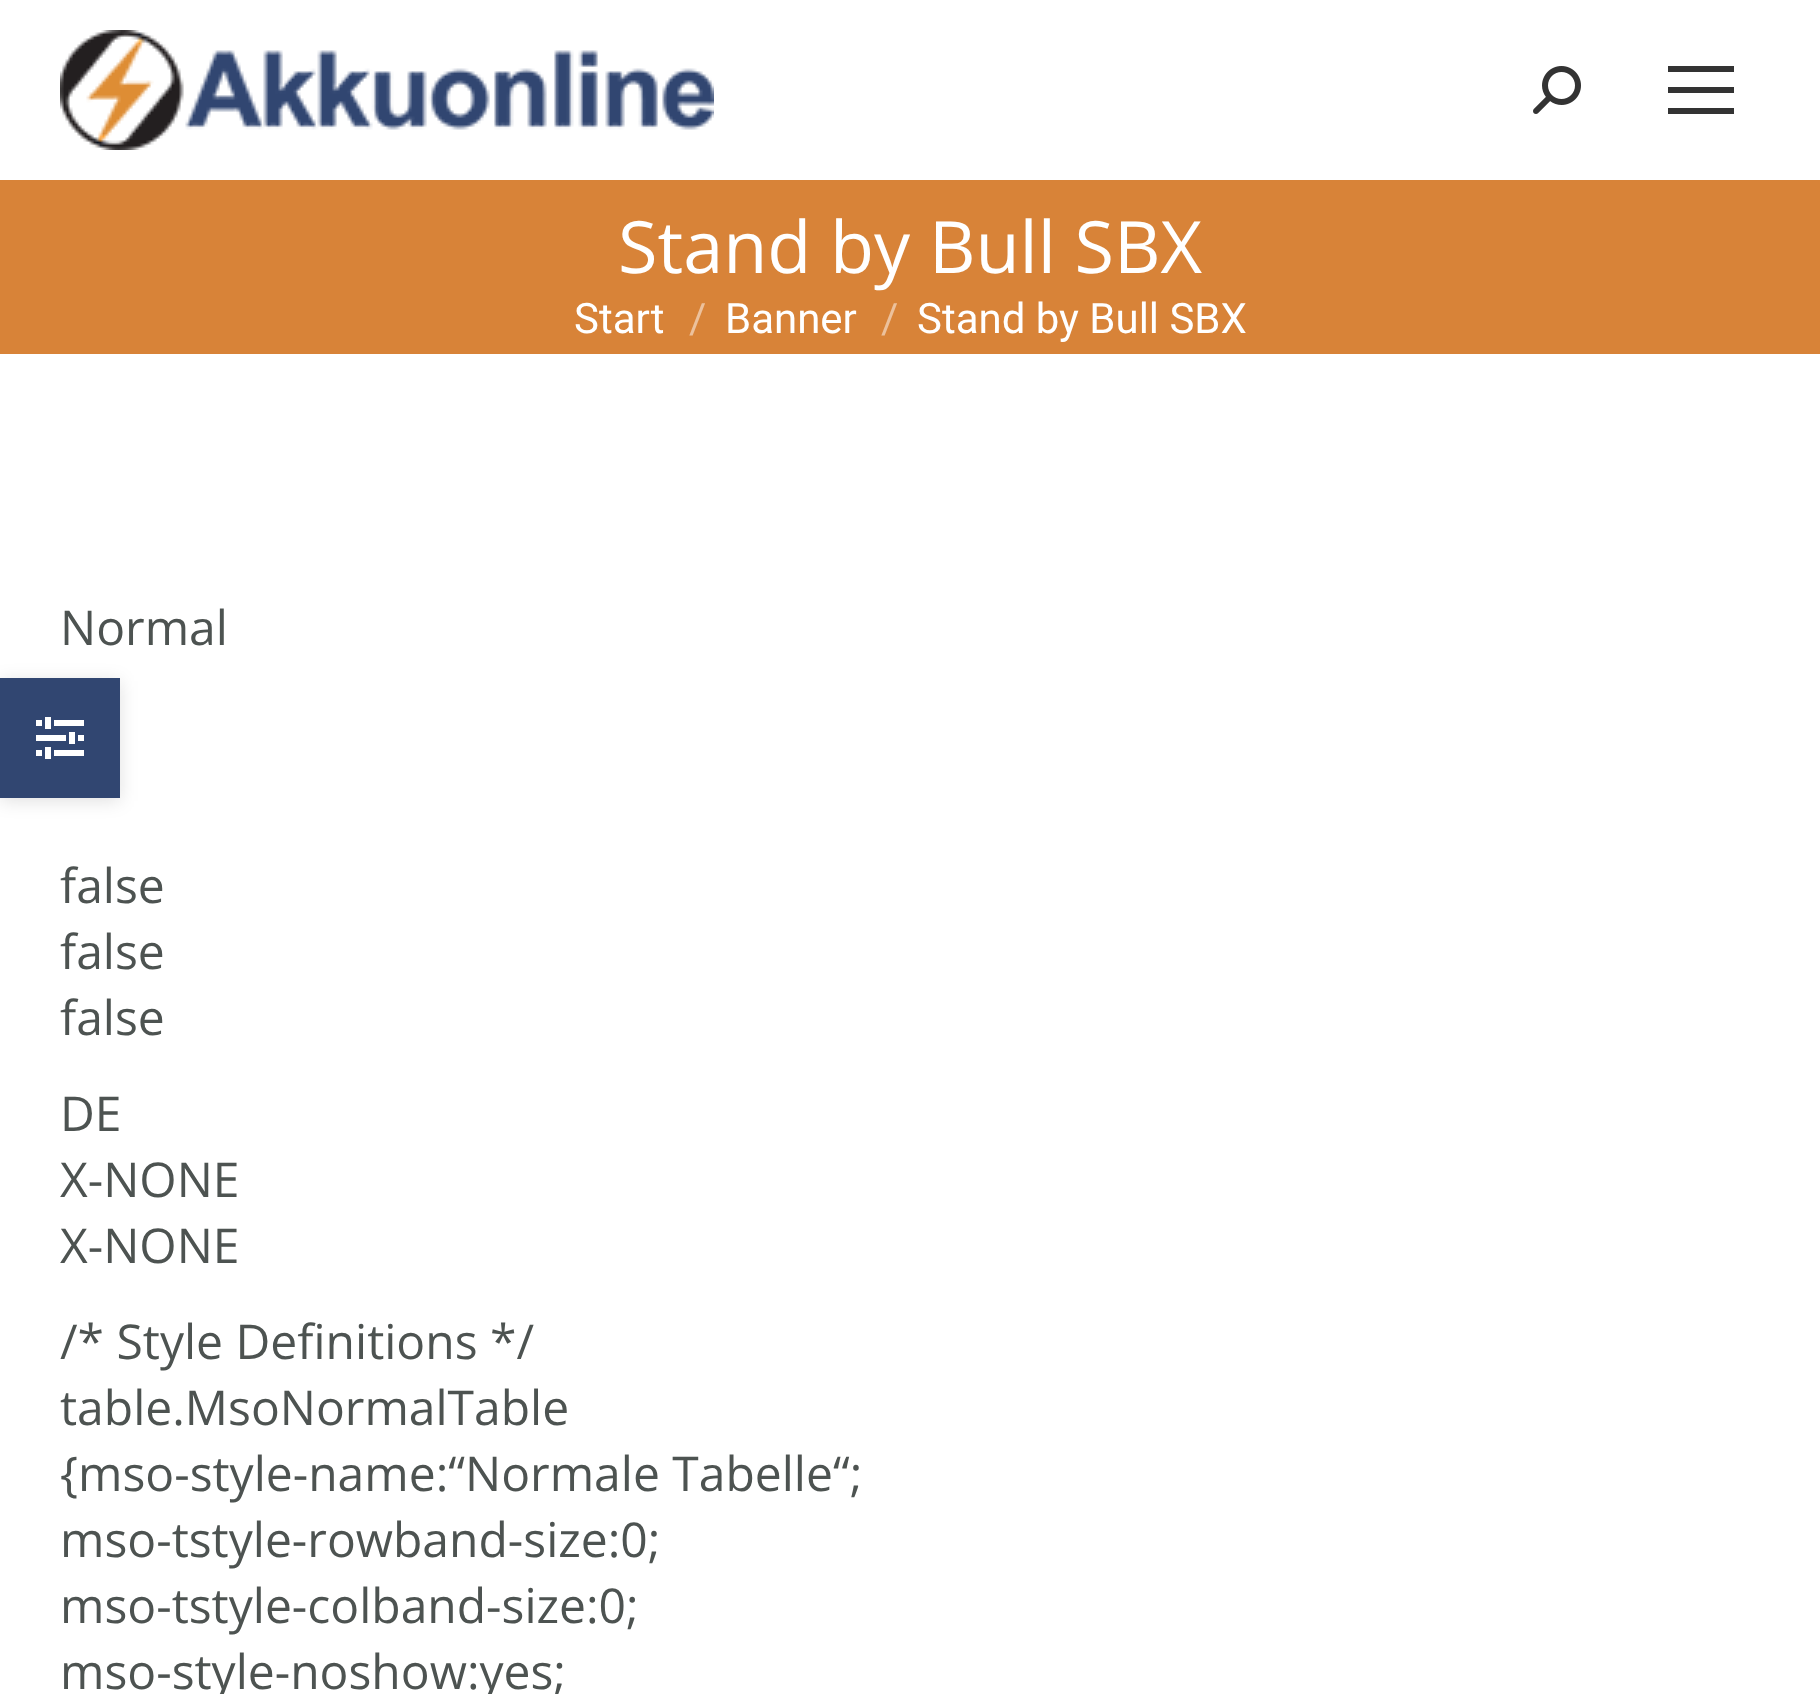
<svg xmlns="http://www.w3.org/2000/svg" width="1820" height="1694">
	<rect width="100%" height="100%" fill="#FFFFFF" />
	<image x="60" y="30" width="654" height="120" href="assets/img1.png" />
	<image x="1533" y="66" width="48" height="48" href="assets/img2.png" />
	<rect x="1668" y="66" width="66" height="6" fill="#333333" />
	<rect x="1668" y="87" width="66" height="6" fill="#333333" />
	<rect x="1668" y="108" width="66" height="6" fill="#333333" />
	<rect x="0" y="180" width="1820" height="174" fill="#D88338" />
	<text x="618" y="273" font-family="Open Sans" font-size="72" fill="#FFFFFF">Stand by Bull SBX</text>
	<text x="574" y="333" font-family="Roboto" font-size="42" fill="#FFFFFF">Start</text>
	<text x="689" y="333" font-family="Roboto" font-size="42" fill="#ECC19C">/</text>
	<text x="725" y="333" font-family="Roboto" font-size="42" fill="#FFFFFF">Banner</text>
	<text x="881" y="333" font-family="Roboto" font-size="42" fill="#ECC19C">/</text>
	<text x="917" y="333" font-family="Roboto" font-size="42" fill="#FFFFFF">Stand by Bull SBX</text>
	<g font-family="Open Sans" font-size="48" fill="#4D5351">
		<text x="60" y="645">Normal</text>
		<text x="60" y="903">false</text>
		<text x="60" y="969">false</text>
		<text x="60" y="1035">false</text>
		<text x="60" y="1131">DE</text>
		<text x="60" y="1197">X-NONE</text>
		<text x="60" y="1263">X-NONE</text>
		<text x="60" y="1359">/* Style Definitions */</text>
		<text x="60" y="1425">table.MsoNormalTable</text>
		<text x="60" y="1491">{mso-style-name:“Normale Tabelle“;</text>
		<text x="60" y="1557">mso-tstyle-rowband-size:0;</text>
		<text x="60" y="1623">mso-tstyle-colband-size:0;</text>
		<text x="60" y="1689">mso-style-noshow:yes;</text>
	</g>
	<rect x="0" y="681" width="120" height="120" fill="#000000" fill-opacity="0.12" filter="blur(9px)" />
	<rect x="0" y="678" width="120" height="120" fill="#314671" />
	<image x="36" y="717" width="48" height="42" href="assets/img3.png" />
</svg>
